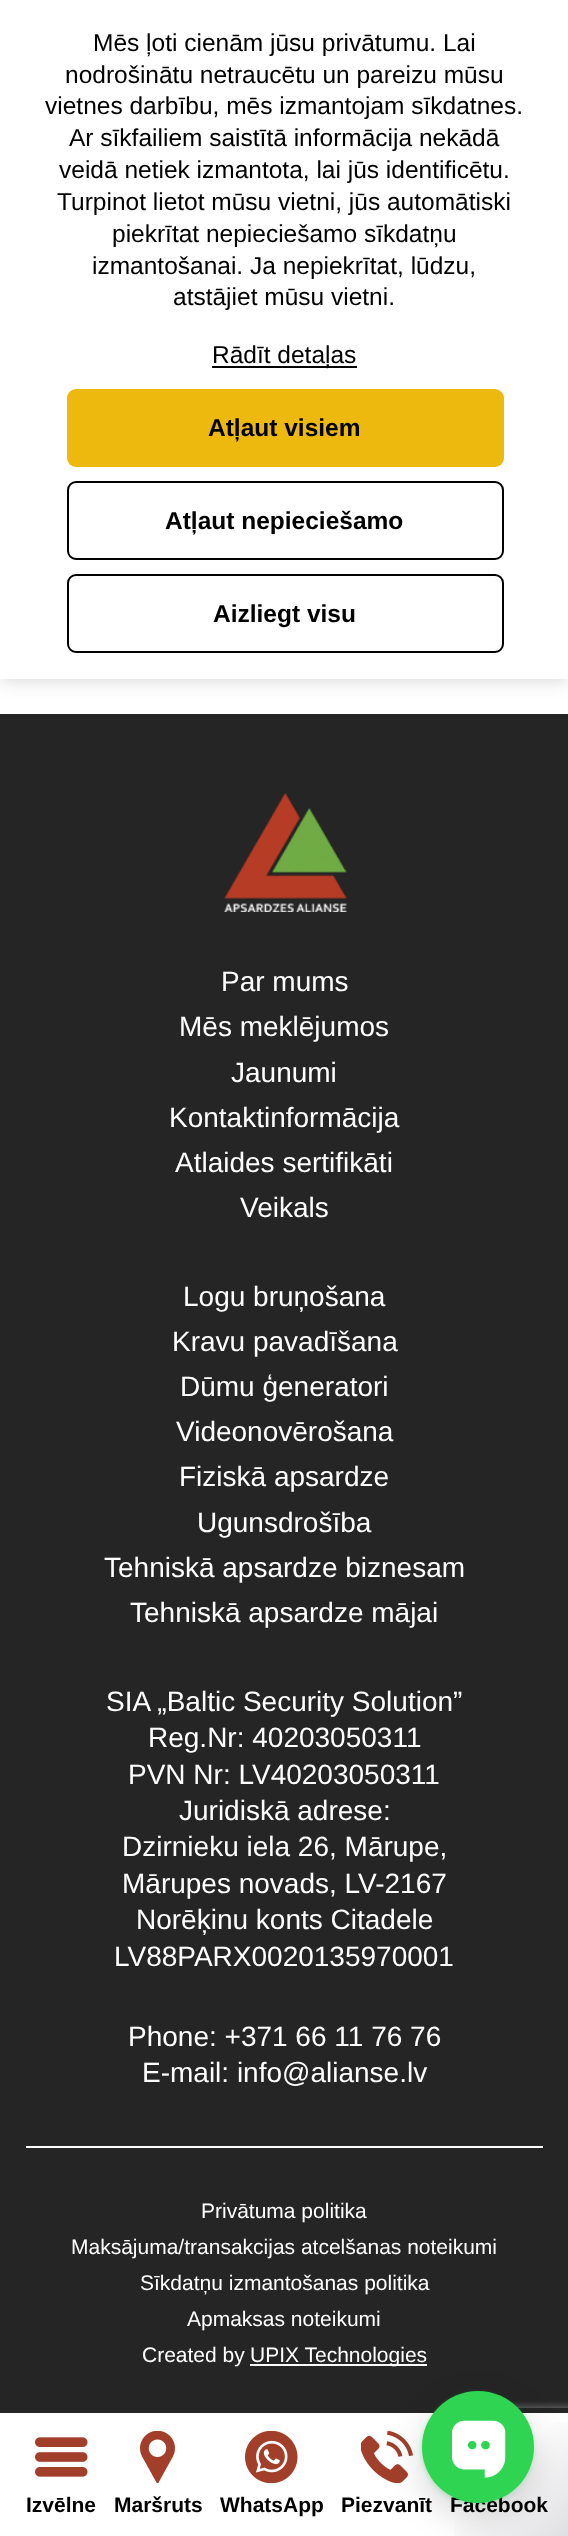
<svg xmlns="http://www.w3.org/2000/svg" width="568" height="2536">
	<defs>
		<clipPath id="clip1"><rect x="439" y="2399" width="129" height="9" /></clipPath>
		<linearGradient id="g1" gradientUnits="userSpaceOnUse" x1="394" y1="2363" x2="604" y2="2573"><stop offset="0.5" stop-color="#0E0E29" stop-opacity="0" /><stop offset="1" stop-color="#0E0E29" stop-opacity="0.2" /></linearGradient>
	</defs>
	<rect width="100%" height="100%" fill="#FFFFFF" />
	<rect x="0" y="0" width="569" height="679" fill="#000000" fill-opacity="0.18" filter="blur(9.5px)" />
	<rect x="0" y="0" width="568" height="679" fill="#FFFFFF" />
	<g font-family="Liberation Sans" font-size="24.5" fill="#000000">
		<text x="93" y="51">Mēs ļoti cienām jūsu privātumu. Lai</text>
		<text x="65" y="83">nodrošinātu netraucētu un pareizu mūsu</text>
		<text x="45" y="114">vietnes darbību, mēs izmantojam sīkdatnes.</text>
		<text x="69" y="146">Ar sīkfailiem saistītā informācija nekādā</text>
		<text x="59" y="178">veidā netiek izmantota, lai jūs identificētu.</text>
		<text x="57" y="210">Turpinot lietot mūsu vietni, jūs automātiski</text>
		<text x="112" y="242">piekrītat nepieciešamo sīkdatņu</text>
		<text x="92" y="274">izmantošanai. Ja nepiekrītat, lūdzu,</text>
		<text x="173" y="305">atstājiet mūsu vietni.</text>
	</g>
	<rect x="212" y="366" width="145" height="2" fill="#000000" />
	<text x="212" y="363" font-family="Liberation Sans" font-size="24.5" fill="#000000">Rādīt detaļas</text>
	<rect x="67" y="389" width="437" height="78" rx="9" fill="#EEB90F" />
	<text x="208" y="436" font-family="Liberation Sans" font-size="24.5" font-weight="700" fill="#000000">Atļaut visiem</text>
	<rect x="68" y="482" width="435" height="77" rx="8" fill="none" stroke="#000000" stroke-width="2" />
	<text x="165" y="529" font-family="Liberation Sans" font-size="24.5" font-weight="700" fill="#000000">Atļaut nepieciešamo</text>
	<rect x="68" y="575" width="435" height="77" rx="8" fill="none" stroke="#000000" stroke-width="2" />
	<text x="213" y="622" font-family="Liberation Sans" font-size="24.5" font-weight="700" fill="#000000">Aizliegt visu</text>
	<rect x="0" y="714" width="568" height="1699" fill="#252525" />
	<image x="224" y="793" width="123" height="119" href="assets/img1.png" />
	<g font-family="Liberation Sans" font-size="28" fill="#FFFFFF">
		<text x="221" y="991">Par mums</text>
		<text x="179" y="1036">Mēs meklējumos</text>
		<text x="231" y="1082">Jaunumi</text>
		<text x="169" y="1127">Kontaktinformācija</text>
		<text x="175" y="1172">Atlaides sertifikāti</text>
		<text x="240" y="1217">Veikals</text>
		<text x="183" y="1306">Logu bruņošana</text>
		<text x="172" y="1351">Kravu pavadīšana</text>
		<text x="180" y="1396">Dūmu ģeneratori</text>
		<text x="176" y="1441">Videonovērošana</text>
		<text x="179" y="1486">Fiziskā apsardze</text>
		<text x="197" y="1532">Ugunsdrošība</text>
		<text x="104" y="1577">Tehniskā apsardze biznesam</text>
		<text x="130" y="1622">Tehniskā apsardze mājai</text>
		<text x="106" y="1711">SIA „Baltic Security Solution”</text>
		<text x="148" y="1747">Reg.Nr: 40203050311</text>
		<text x="128" y="1784">PVN Nr: LV40203050311</text>
		<text x="179" y="1820">Juridiskā adrese:</text>
		<text x="122" y="1856">Dzirnieku iela 26, Mārupe,</text>
		<text x="122" y="1893">Mārupes novads, LV-2167</text>
		<text x="136" y="1929">Norēķinu konts Citadele</text>
		<text x="114" y="1966">LV88PARX0020135970001</text>
		<text x="128" y="2046">Phone: +371 66 11 76 76</text>
		<text x="142" y="2082">E-mail: info@alianse.lv</text>
	</g>
	<rect x="26" y="2146" width="517" height="2" fill="#FFFFFF" />
	<g font-family="Liberation Sans" font-size="21" fill="#FFFFFF">
		<text x="201" y="2218">Privātuma politika</text>
		<text x="71" y="2254">Maksājuma/transakcijas atcelšanas noteikumi</text>
		<text x="140" y="2290">Sīkdatņu izmantošanas politika</text>
		<text x="187" y="2326">Apmaksas noteikumi</text>
		<text x="142" y="2362">Created by</text>
	</g>
	<rect x="250" y="2364" width="177" height="2" fill="#FFFFFF" />
	<text x="250" y="2362" font-family="Liberation Sans" font-size="21" fill="#FFFFFF">UPIX Technologies</text>
	<g clip-path="url(#clip1)">
		<rect x="446" y="2408" width="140" height="105" rx="4" fill="#808080" filter="blur(4.5px)" />
	</g>
	<rect x="437" y="2413" width="131" height="109" fill="#FFFFFF" />
	<rect x="454" y="2422" width="114" height="114" fill="url(#g1)" />
	<image x="361" y="2431" width="52" height="52" href="assets/img6.png" />
	<rect x="422" y="2405" width="112" height="112" rx="56" fill="#000000" fill-opacity="0.16" filter="blur(17.5px)" />
	<rect x="425" y="2396" width="105" height="105" rx="52.5" fill="#2ED452" filter="blur(3.5px)" />
	<g font-family="Liberation Sans" font-size="21" font-weight="700" fill="#000000">
		<text x="341" y="2512">Piezvanīt</text>
		<text x="450" y="2512">Facebook</text>
	</g>
	<circle cx="478" cy="2447" r="56" fill="#2ED452" />
	<image x="452" y="2420" width="54" height="58" href="assets/img2.png" />
	<image x="35" y="2437" width="53" height="40" href="assets/img3.png" />
	<text x="26" y="2512" font-family="Liberation Sans" font-size="21" font-weight="700" fill="#000000">Izvēlne</text>
	<image x="140" y="2431" width="35" height="52" href="assets/img4.png" />
	<text x="114" y="2512" font-family="Liberation Sans" font-size="21" font-weight="700" fill="#000000">Maršruts</text>
	<image x="245" y="2431" width="53" height="52" href="assets/img5.png" />
	<text x="220" y="2512" font-family="Liberation Sans" font-size="21" font-weight="700" fill="#000000">WhatsApp</text>
</svg>
